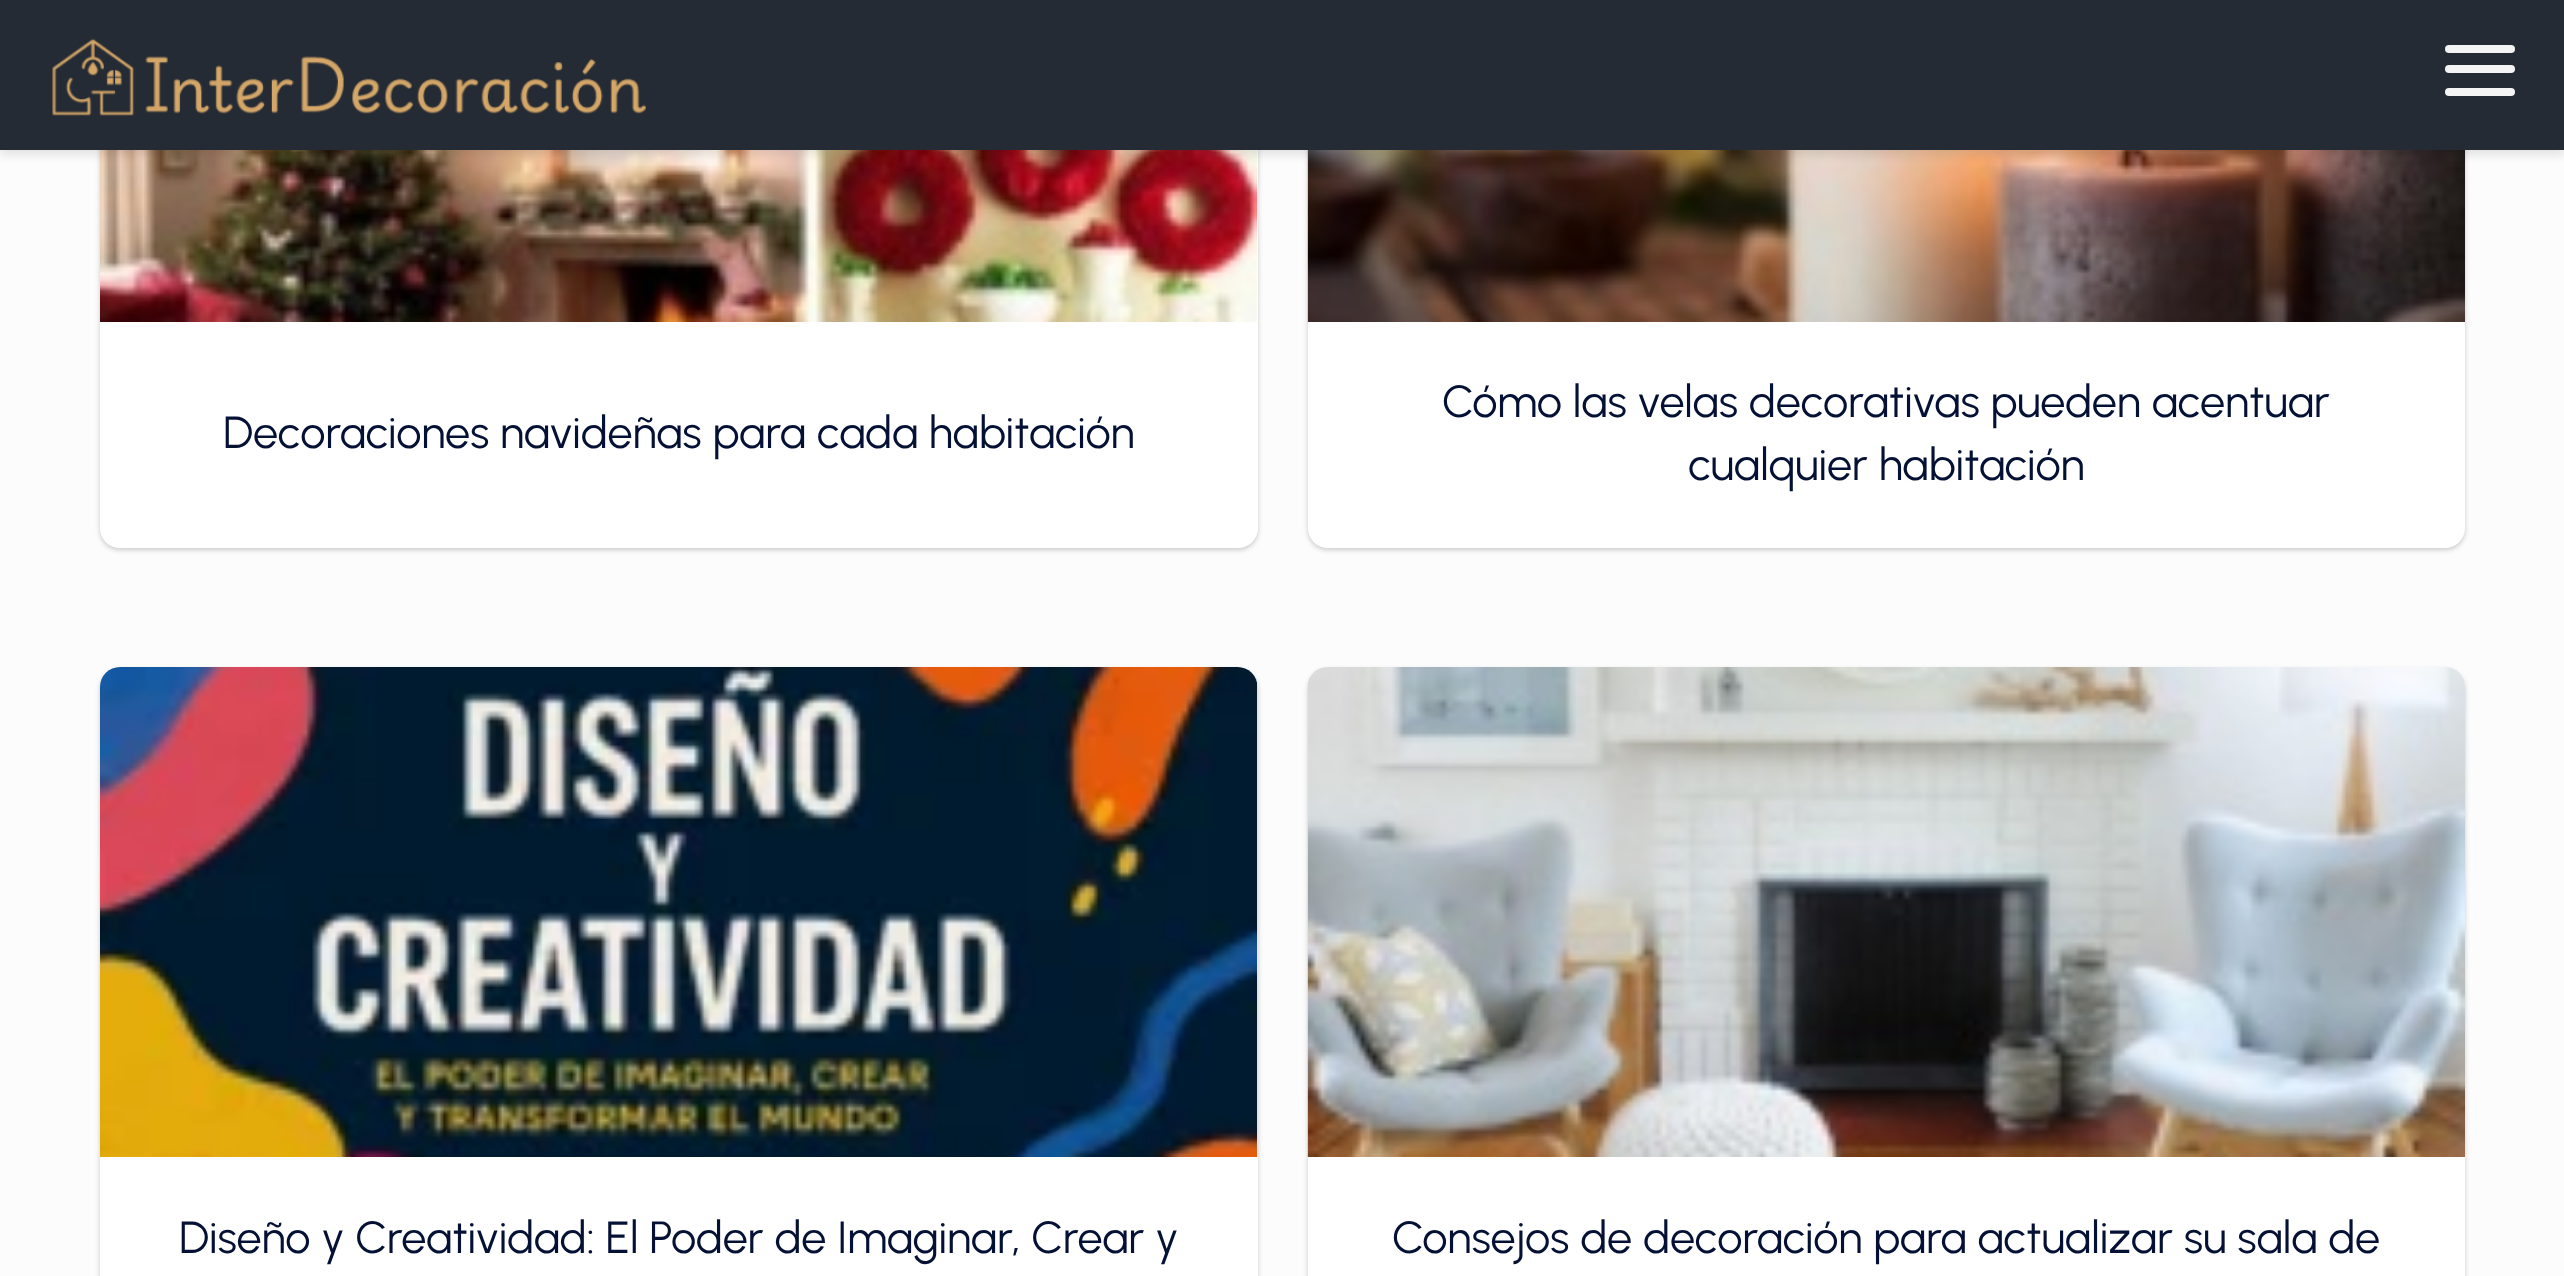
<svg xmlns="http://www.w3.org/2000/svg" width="2564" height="1276">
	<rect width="100%" height="100%" fill="#FCFCFC" />
	<rect x="100" y="-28" width="1158" height="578" rx="20" fill="#000000" fill-opacity="0.2" filter="blur(2.5px)" />
	<rect x="100" y="-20" width="1158" height="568" rx="20" fill="#FFFFFF" />
	<image x="100" y="150" width="1158" height="172" href="assets/img2.png" />
	<rect x="1308" y="-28" width="1157" height="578" rx="20" fill="#000000" fill-opacity="0.2" filter="blur(2.5px)" />
	<rect x="1308" y="-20" width="1157" height="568" rx="20" fill="#FFFFFF" />
	<image x="1307" y="150" width="1158" height="172" href="assets/img3.png" />
	<rect x="0" y="5" width="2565" height="150" fill="#000000" fill-opacity="0.1" filter="blur(5px)" />
	<rect x="0" y="0" width="2564" height="150" fill="#252B35" />
	<image x="52" y="38" width="594" height="78" href="assets/img1.png" />
	<rect x="2445" y="45" width="70" height="8" rx="4" fill="#F4F4F4" />
	<rect x="2445" y="65" width="70" height="8" rx="4" fill="#F4F4F4" />
	<rect x="2445" y="88" width="70" height="8" rx="4" fill="#F4F4F4" />
	<g font-family="Urbanist" font-size="45" fill="#041135">
		<text x="223" y="448">Decoraciones navideñas para cada habitación</text>
		<text x="1442" y="417">Cómo las velas decorativas pueden acentuar</text>
		<text x="1688" y="480">cualquier habitación</text>
	</g>
	<rect x="100" y="670" width="1158" height="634" rx="20" fill="#000000" fill-opacity="0.2" filter="blur(2.5px)" />
	<rect x="100" y="668" width="1158" height="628" rx="20" fill="#FFFFFF" />
	<image x="100" y="667" width="1158" height="490" href="assets/img4.png" />
	<text x="179" y="1253" font-family="Urbanist" font-size="45" fill="#041135">Diseño y Creatividad: El Poder de Imaginar, Crear y</text>
	<rect x="1308" y="670" width="1157" height="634" rx="20" fill="#000000" fill-opacity="0.2" filter="blur(2.5px)" />
	<rect x="1308" y="668" width="1157" height="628" rx="20" fill="#FFFFFF" />
	<image x="1307" y="667" width="1158" height="490" href="assets/img5.png" />
	<text x="1392" y="1253" font-family="Urbanist" font-size="45" fill="#041135">Consejos de decoración para actualizar su sala de</text>
</svg>
